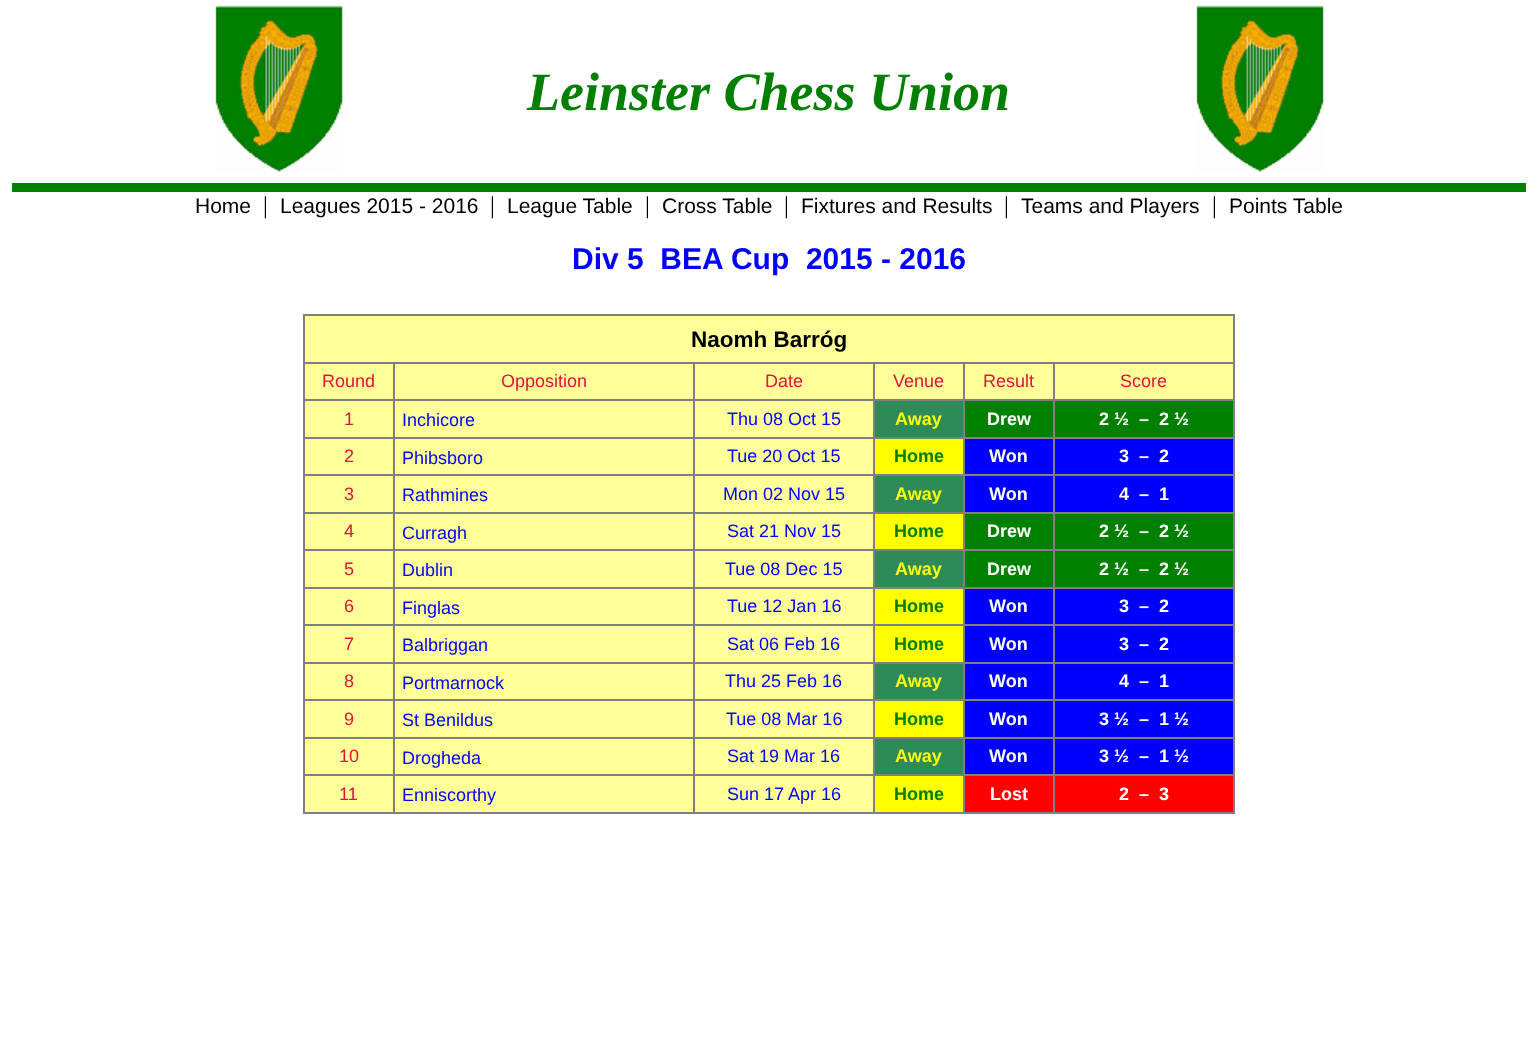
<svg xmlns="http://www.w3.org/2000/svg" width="1537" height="1048">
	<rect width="100%" height="100%" fill="#FFFFFF" />
	<rect x="12" y="183" width="1514" height="9" fill="#007F00" />
	<image x="215" y="5" width="128" height="167" href="assets/img1.png" />
	<text x="527" y="110" font-family="Liberation Serif" font-size="54" font-weight="700" font-style="italic" fill="#007F00">Leinster Chess Union</text>
	<image x="1196" y="5" width="128" height="167" href="assets/img2.png" />
	<text x="195" y="213" font-family="Liberation Sans" font-size="21" fill="#000000">Home</text>
	<text x="263" y="213" font-family="Liberation Serif" font-size="24" fill="#000000">|</text>
	<text x="280" y="213" font-family="Liberation Sans" font-size="21" fill="#000000">Leagues 2015 - 2016</text>
	<text x="490" y="213" font-family="Liberation Serif" font-size="24" fill="#000000">|</text>
	<text x="507" y="213" font-family="Liberation Sans" font-size="21" fill="#000000">League Table</text>
	<text x="645" y="213" font-family="Liberation Serif" font-size="24" fill="#000000">|</text>
	<text x="662" y="213" font-family="Liberation Sans" font-size="21" fill="#000000">Cross Table</text>
	<text x="784" y="213" font-family="Liberation Serif" font-size="24" fill="#000000">|</text>
	<text x="801" y="213" font-family="Liberation Sans" font-size="21" fill="#000000">Fixtures and Results</text>
	<text x="1004" y="213" font-family="Liberation Serif" font-size="24" fill="#000000">|</text>
	<text x="1021" y="213" font-family="Liberation Sans" font-size="21" fill="#000000">Teams and Players</text>
	<text x="1212" y="213" font-family="Liberation Serif" font-size="24" fill="#000000">|</text>
	<text x="1229" y="213" font-family="Liberation Sans" font-size="21" fill="#000000">Points Table</text>
	<text x="572" y="269" font-family="Liberation Sans" font-size="30" font-weight="700" fill="#0000FF" xml:space="preserve">Div 5  BEA Cup  2015 - 2016</text>
	<rect x="305" y="316" width="928" height="496" fill="#FFFF99" />
	<rect x="303" y="314" width="932" height="2" fill="#808080" />
	<rect x="1233" y="314" width="2" height="499" fill="#808080" />
	<rect x="303" y="812" width="932" height="2" fill="#808080" />
	<rect x="303" y="314" width="2" height="499" fill="#808080" />
	<text x="691" y="347" font-family="Liberation Sans" font-size="22.5" font-weight="700" fill="#000000">Naomh Barróg</text>
	<rect x="1053" y="362" width="182" height="2" fill="#808080" />
	<rect x="1053" y="399" width="182" height="2" fill="#808080" />
	<rect x="1053" y="437" width="182" height="2" fill="#808080" />
	<rect x="1053" y="474" width="182" height="2" fill="#808080" />
	<rect x="1053" y="512" width="182" height="2" fill="#808080" />
	<rect x="1053" y="549" width="182" height="2" fill="#808080" />
	<rect x="1053" y="587" width="182" height="2" fill="#808080" />
	<rect x="1053" y="624" width="182" height="2" fill="#808080" />
	<rect x="1053" y="662" width="182" height="2" fill="#808080" />
	<rect x="1053" y="699" width="182" height="2" fill="#808080" />
	<rect x="1053" y="737" width="182" height="2" fill="#808080" />
	<rect x="1053" y="774" width="182" height="2" fill="#808080" />
	<rect x="1053" y="774" width="2" height="39" fill="#808080" />
	<rect x="963" y="774" width="92" height="2" fill="#808080" />
	<rect x="1053" y="737" width="2" height="39" fill="#808080" />
	<rect x="963" y="737" width="92" height="2" fill="#808080" />
	<rect x="1053" y="699" width="2" height="39" fill="#808080" />
	<rect x="963" y="699" width="92" height="2" fill="#808080" />
	<rect x="1053" y="662" width="2" height="39" fill="#808080" />
	<rect x="963" y="662" width="92" height="2" fill="#808080" />
	<rect x="1053" y="624" width="2" height="39" fill="#808080" />
	<rect x="963" y="624" width="92" height="2" fill="#808080" />
	<rect x="1053" y="587" width="2" height="39" fill="#808080" />
	<rect x="963" y="587" width="92" height="2" fill="#808080" />
	<rect x="1053" y="549" width="2" height="39" fill="#808080" />
	<rect x="963" y="549" width="92" height="2" fill="#808080" />
	<rect x="1053" y="512" width="2" height="39" fill="#808080" />
	<rect x="963" y="512" width="92" height="2" fill="#808080" />
	<rect x="1053" y="474" width="2" height="39" fill="#808080" />
	<rect x="963" y="474" width="92" height="2" fill="#808080" />
	<rect x="1053" y="437" width="2" height="39" fill="#808080" />
	<rect x="963" y="437" width="92" height="2" fill="#808080" />
	<rect x="1053" y="399" width="2" height="39" fill="#808080" />
	<rect x="963" y="399" width="92" height="2" fill="#808080" />
	<rect x="1053" y="362" width="2" height="39" fill="#808080" />
	<rect x="963" y="362" width="92" height="2" fill="#808080" />
	<rect x="963" y="774" width="2" height="39" fill="#808080" />
	<rect x="873" y="774" width="92" height="2" fill="#808080" />
	<rect x="963" y="737" width="2" height="39" fill="#808080" />
	<rect x="873" y="737" width="92" height="2" fill="#808080" />
	<rect x="963" y="699" width="2" height="39" fill="#808080" />
	<rect x="873" y="699" width="92" height="2" fill="#808080" />
	<rect x="963" y="662" width="2" height="39" fill="#808080" />
	<rect x="873" y="662" width="92" height="2" fill="#808080" />
	<rect x="963" y="624" width="2" height="39" fill="#808080" />
	<rect x="873" y="624" width="92" height="2" fill="#808080" />
	<rect x="963" y="587" width="2" height="39" fill="#808080" />
	<rect x="873" y="587" width="92" height="2" fill="#808080" />
	<rect x="963" y="549" width="2" height="39" fill="#808080" />
	<rect x="873" y="549" width="92" height="2" fill="#808080" />
	<rect x="963" y="512" width="2" height="39" fill="#808080" />
	<rect x="873" y="512" width="92" height="2" fill="#808080" />
	<rect x="963" y="474" width="2" height="39" fill="#808080" />
	<rect x="873" y="474" width="92" height="2" fill="#808080" />
	<rect x="963" y="437" width="2" height="39" fill="#808080" />
	<rect x="873" y="437" width="92" height="2" fill="#808080" />
	<rect x="963" y="399" width="2" height="39" fill="#808080" />
	<rect x="873" y="399" width="92" height="2" fill="#808080" />
	<rect x="963" y="362" width="2" height="39" fill="#808080" />
	<rect x="873" y="362" width="92" height="2" fill="#808080" />
	<rect x="873" y="774" width="2" height="39" fill="#808080" />
	<rect x="693" y="774" width="182" height="2" fill="#808080" />
	<rect x="873" y="737" width="2" height="39" fill="#808080" />
	<rect x="693" y="737" width="182" height="2" fill="#808080" />
	<rect x="873" y="699" width="2" height="39" fill="#808080" />
	<rect x="693" y="699" width="182" height="2" fill="#808080" />
	<rect x="873" y="662" width="2" height="39" fill="#808080" />
	<rect x="693" y="662" width="182" height="2" fill="#808080" />
	<rect x="873" y="624" width="2" height="39" fill="#808080" />
	<rect x="693" y="624" width="182" height="2" fill="#808080" />
	<rect x="873" y="587" width="2" height="39" fill="#808080" />
	<rect x="693" y="587" width="182" height="2" fill="#808080" />
	<rect x="873" y="549" width="2" height="39" fill="#808080" />
	<rect x="693" y="549" width="182" height="2" fill="#808080" />
	<rect x="873" y="512" width="2" height="39" fill="#808080" />
	<rect x="693" y="512" width="182" height="2" fill="#808080" />
	<rect x="873" y="474" width="2" height="39" fill="#808080" />
	<rect x="693" y="474" width="182" height="2" fill="#808080" />
	<rect x="873" y="437" width="2" height="39" fill="#808080" />
	<rect x="693" y="437" width="182" height="2" fill="#808080" />
	<rect x="873" y="399" width="2" height="39" fill="#808080" />
	<rect x="693" y="399" width="182" height="2" fill="#808080" />
	<rect x="873" y="362" width="2" height="39" fill="#808080" />
	<rect x="693" y="362" width="182" height="2" fill="#808080" />
	<rect x="693" y="774" width="2" height="39" fill="#808080" />
	<rect x="393" y="774" width="302" height="2" fill="#808080" />
	<rect x="693" y="737" width="2" height="39" fill="#808080" />
	<rect x="393" y="737" width="302" height="2" fill="#808080" />
	<rect x="693" y="699" width="2" height="39" fill="#808080" />
	<rect x="393" y="699" width="302" height="2" fill="#808080" />
	<rect x="693" y="662" width="2" height="39" fill="#808080" />
	<rect x="393" y="662" width="302" height="2" fill="#808080" />
	<rect x="693" y="624" width="2" height="39" fill="#808080" />
	<rect x="393" y="624" width="302" height="2" fill="#808080" />
	<rect x="693" y="587" width="2" height="39" fill="#808080" />
	<rect x="393" y="587" width="302" height="2" fill="#808080" />
	<rect x="693" y="549" width="2" height="39" fill="#808080" />
	<rect x="393" y="549" width="302" height="2" fill="#808080" />
	<rect x="693" y="512" width="2" height="39" fill="#808080" />
	<rect x="393" y="512" width="302" height="2" fill="#808080" />
	<rect x="693" y="474" width="2" height="39" fill="#808080" />
	<rect x="393" y="474" width="302" height="2" fill="#808080" />
	<rect x="693" y="437" width="2" height="39" fill="#808080" />
	<rect x="393" y="437" width="302" height="2" fill="#808080" />
	<rect x="693" y="399" width="2" height="39" fill="#808080" />
	<rect x="393" y="399" width="302" height="2" fill="#808080" />
	<rect x="693" y="362" width="2" height="39" fill="#808080" />
	<rect x="393" y="362" width="302" height="2" fill="#808080" />
	<rect x="393" y="774" width="2" height="39" fill="#808080" />
	<rect x="303" y="774" width="92" height="2" fill="#808080" />
	<rect x="393" y="737" width="2" height="39" fill="#808080" />
	<rect x="303" y="737" width="92" height="2" fill="#808080" />
	<rect x="393" y="699" width="2" height="39" fill="#808080" />
	<rect x="303" y="699" width="92" height="2" fill="#808080" />
	<rect x="393" y="662" width="2" height="39" fill="#808080" />
	<rect x="303" y="662" width="92" height="2" fill="#808080" />
	<rect x="393" y="624" width="2" height="39" fill="#808080" />
	<rect x="303" y="624" width="92" height="2" fill="#808080" />
	<rect x="393" y="587" width="2" height="39" fill="#808080" />
	<rect x="303" y="587" width="92" height="2" fill="#808080" />
	<rect x="393" y="549" width="2" height="39" fill="#808080" />
	<rect x="303" y="549" width="92" height="2" fill="#808080" />
	<rect x="393" y="512" width="2" height="39" fill="#808080" />
	<rect x="303" y="512" width="92" height="2" fill="#808080" />
	<rect x="393" y="474" width="2" height="39" fill="#808080" />
	<rect x="303" y="474" width="92" height="2" fill="#808080" />
	<rect x="393" y="437" width="2" height="39" fill="#808080" />
	<rect x="303" y="437" width="92" height="2" fill="#808080" />
	<rect x="393" y="399" width="2" height="39" fill="#808080" />
	<rect x="303" y="399" width="92" height="2" fill="#808080" />
	<rect x="393" y="362" width="2" height="39" fill="#808080" />
	<rect x="303" y="362" width="92" height="2" fill="#808080" />
	<g font-family="Liberation Sans" font-size="18" fill="#DC143C">
		<text x="322" y="387">Round</text>
		<text x="501" y="387">Opposition</text>
		<text x="765" y="387">Date</text>
		<text x="893" y="387">Venue</text>
		<text x="983" y="387">Result</text>
		<text x="1120" y="387">Score</text>
		<text x="344" y="425">1</text>
	</g>
	<g font-family="Liberation Sans" font-size="18" fill="#0000FF">
		<text x="402" y="426">Inchicore</text>
		<text x="727" y="425">Thu 08 Oct 15</text>
	</g>
	<rect x="875" y="401" width="88" height="36" fill="#2E8B57" />
	<text x="895" y="425" font-family="Liberation Sans" font-size="18" font-weight="700" fill="#FFFF00">Away</text>
	<rect x="965" y="401" width="88" height="36" fill="#008000" />
	<text x="987" y="425" font-family="Liberation Sans" font-size="18" font-weight="700" fill="#FFFFFF">Drew</text>
	<rect x="1055" y="401" width="178" height="36" fill="#008000" />
	<text x="1099" y="425" font-family="Liberation Sans" font-size="18" font-weight="700" fill="#FFFFFF" xml:space="preserve">2 ½  –  2 ½</text>
	<text x="344" y="462" font-family="Liberation Sans" font-size="18" fill="#DC143C">2</text>
	<g font-family="Liberation Sans" font-size="18" fill="#0000FF">
		<text x="402" y="464">Phibsboro</text>
		<text x="727" y="462">Tue 20 Oct 15</text>
	</g>
	<rect x="875" y="439" width="88" height="35" fill="#FFFF00" />
	<text x="894" y="462" font-family="Liberation Sans" font-size="18" font-weight="700" fill="#007F00">Home</text>
	<rect x="965" y="439" width="88" height="35" fill="#0000FF" />
	<text x="989" y="462" font-family="Liberation Sans" font-size="18" font-weight="700" fill="#FFFFFF">Won</text>
	<rect x="1055" y="439" width="178" height="35" fill="#0000FF" />
	<text x="1119" y="462" font-family="Liberation Sans" font-size="18" font-weight="700" fill="#FFFFFF" xml:space="preserve">3  –  2</text>
	<text x="344" y="500" font-family="Liberation Sans" font-size="18" fill="#DC143C">3</text>
	<g font-family="Liberation Sans" font-size="18" fill="#0000FF">
		<text x="402" y="501">Rathmines</text>
		<text x="723" y="500">Mon 02 Nov 15</text>
	</g>
	<rect x="875" y="476" width="88" height="36" fill="#2E8B57" />
	<text x="895" y="500" font-family="Liberation Sans" font-size="18" font-weight="700" fill="#FFFF00">Away</text>
	<rect x="965" y="476" width="88" height="36" fill="#0000FF" />
	<text x="989" y="500" font-family="Liberation Sans" font-size="18" font-weight="700" fill="#FFFFFF">Won</text>
	<rect x="1055" y="476" width="178" height="36" fill="#0000FF" />
	<text x="1119" y="500" font-family="Liberation Sans" font-size="18" font-weight="700" fill="#FFFFFF" xml:space="preserve">4  –  1</text>
	<text x="344" y="537" font-family="Liberation Sans" font-size="18" fill="#DC143C">4</text>
	<g font-family="Liberation Sans" font-size="18" fill="#0000FF">
		<text x="402" y="539">Curragh</text>
		<text x="727" y="537">Sat 21 Nov 15</text>
	</g>
	<rect x="875" y="514" width="88" height="35" fill="#FFFF00" />
	<text x="894" y="537" font-family="Liberation Sans" font-size="18" font-weight="700" fill="#007F00">Home</text>
	<rect x="965" y="514" width="88" height="35" fill="#008000" />
	<text x="987" y="537" font-family="Liberation Sans" font-size="18" font-weight="700" fill="#FFFFFF">Drew</text>
	<rect x="1055" y="514" width="178" height="35" fill="#008000" />
	<text x="1099" y="537" font-family="Liberation Sans" font-size="18" font-weight="700" fill="#FFFFFF" xml:space="preserve">2 ½  –  2 ½</text>
	<text x="344" y="575" font-family="Liberation Sans" font-size="18" fill="#DC143C">5</text>
	<g font-family="Liberation Sans" font-size="18" fill="#0000FF">
		<text x="402" y="576">Dublin</text>
		<text x="725" y="575">Tue 08 Dec 15</text>
	</g>
	<rect x="875" y="551" width="88" height="36" fill="#2E8B57" />
	<text x="895" y="575" font-family="Liberation Sans" font-size="18" font-weight="700" fill="#FFFF00">Away</text>
	<rect x="965" y="551" width="88" height="36" fill="#008000" />
	<text x="987" y="575" font-family="Liberation Sans" font-size="18" font-weight="700" fill="#FFFFFF">Drew</text>
	<rect x="1055" y="551" width="178" height="36" fill="#008000" />
	<text x="1099" y="575" font-family="Liberation Sans" font-size="18" font-weight="700" fill="#FFFFFF" xml:space="preserve">2 ½  –  2 ½</text>
	<text x="344" y="612" font-family="Liberation Sans" font-size="18" fill="#DC143C">6</text>
	<g font-family="Liberation Sans" font-size="18" fill="#0000FF">
		<text x="402" y="614">Finglas</text>
		<text x="727" y="612">Tue 12 Jan 16</text>
	</g>
	<rect x="875" y="589" width="88" height="35" fill="#FFFF00" />
	<text x="894" y="612" font-family="Liberation Sans" font-size="18" font-weight="700" fill="#007F00">Home</text>
	<rect x="965" y="589" width="88" height="35" fill="#0000FF" />
	<text x="989" y="612" font-family="Liberation Sans" font-size="18" font-weight="700" fill="#FFFFFF">Won</text>
	<rect x="1055" y="589" width="178" height="35" fill="#0000FF" />
	<text x="1119" y="612" font-family="Liberation Sans" font-size="18" font-weight="700" fill="#FFFFFF" xml:space="preserve">3  –  2</text>
	<text x="344" y="650" font-family="Liberation Sans" font-size="18" fill="#DC143C">7</text>
	<g font-family="Liberation Sans" font-size="18" fill="#0000FF">
		<text x="402" y="651">Balbriggan</text>
		<text x="727" y="650">Sat 06 Feb 16</text>
	</g>
	<rect x="875" y="626" width="88" height="36" fill="#FFFF00" />
	<text x="894" y="650" font-family="Liberation Sans" font-size="18" font-weight="700" fill="#007F00">Home</text>
	<rect x="965" y="626" width="88" height="36" fill="#0000FF" />
	<text x="989" y="650" font-family="Liberation Sans" font-size="18" font-weight="700" fill="#FFFFFF">Won</text>
	<rect x="1055" y="626" width="178" height="36" fill="#0000FF" />
	<text x="1119" y="650" font-family="Liberation Sans" font-size="18" font-weight="700" fill="#FFFFFF" xml:space="preserve">3  –  2</text>
	<text x="344" y="687" font-family="Liberation Sans" font-size="18" fill="#DC143C">8</text>
	<g font-family="Liberation Sans" font-size="18" fill="#0000FF">
		<text x="402" y="689">Portmarnock</text>
		<text x="725" y="687">Thu 25 Feb 16</text>
	</g>
	<rect x="875" y="664" width="88" height="35" fill="#2E8B57" />
	<text x="895" y="687" font-family="Liberation Sans" font-size="18" font-weight="700" fill="#FFFF00">Away</text>
	<rect x="965" y="664" width="88" height="35" fill="#0000FF" />
	<text x="989" y="687" font-family="Liberation Sans" font-size="18" font-weight="700" fill="#FFFFFF">Won</text>
	<rect x="1055" y="664" width="178" height="35" fill="#0000FF" />
	<text x="1119" y="687" font-family="Liberation Sans" font-size="18" font-weight="700" fill="#FFFFFF" xml:space="preserve">4  –  1</text>
	<text x="344" y="725" font-family="Liberation Sans" font-size="18" fill="#DC143C">9</text>
	<g font-family="Liberation Sans" font-size="18" fill="#0000FF">
		<text x="402" y="726">St Benildus</text>
		<text x="726" y="725">Tue 08 Mar 16</text>
	</g>
	<rect x="875" y="701" width="88" height="36" fill="#FFFF00" />
	<text x="894" y="725" font-family="Liberation Sans" font-size="18" font-weight="700" fill="#007F00">Home</text>
	<rect x="965" y="701" width="88" height="36" fill="#0000FF" />
	<text x="989" y="725" font-family="Liberation Sans" font-size="18" font-weight="700" fill="#FFFFFF">Won</text>
	<rect x="1055" y="701" width="178" height="36" fill="#0000FF" />
	<text x="1099" y="725" font-family="Liberation Sans" font-size="18" font-weight="700" fill="#FFFFFF" xml:space="preserve">3 ½  –  1 ½</text>
	<text x="339" y="762" font-family="Liberation Sans" font-size="18" fill="#DC143C">10</text>
	<g font-family="Liberation Sans" font-size="18" fill="#0000FF">
		<text x="402" y="764">Drogheda</text>
		<text x="727" y="762">Sat 19 Mar 16</text>
	</g>
	<rect x="875" y="739" width="88" height="35" fill="#2E8B57" />
	<text x="895" y="762" font-family="Liberation Sans" font-size="18" font-weight="700" fill="#FFFF00">Away</text>
	<rect x="965" y="739" width="88" height="35" fill="#0000FF" />
	<text x="989" y="762" font-family="Liberation Sans" font-size="18" font-weight="700" fill="#FFFFFF">Won</text>
	<rect x="1055" y="739" width="178" height="35" fill="#0000FF" />
	<text x="1099" y="762" font-family="Liberation Sans" font-size="18" font-weight="700" fill="#FFFFFF" xml:space="preserve">3 ½  –  1 ½</text>
	<text x="339" y="800" font-family="Liberation Sans" font-size="18" fill="#DC143C">11</text>
	<g font-family="Liberation Sans" font-size="18" fill="#0000FF">
		<text x="402" y="801">Enniscorthy</text>
		<text x="727" y="800">Sun 17 Apr 16</text>
	</g>
	<rect x="875" y="776" width="88" height="36" fill="#FFFF00" />
	<text x="894" y="800" font-family="Liberation Sans" font-size="18" font-weight="700" fill="#007F00">Home</text>
	<rect x="965" y="776" width="88" height="36" fill="#FF0000" />
	<text x="990" y="800" font-family="Liberation Sans" font-size="18" font-weight="700" fill="#FFFFFF">Lost</text>
	<rect x="1055" y="776" width="178" height="36" fill="#FF0000" />
	<text x="1119" y="800" font-family="Liberation Sans" font-size="18" font-weight="700" fill="#FFFFFF" xml:space="preserve">2  –  3</text>
</svg>
